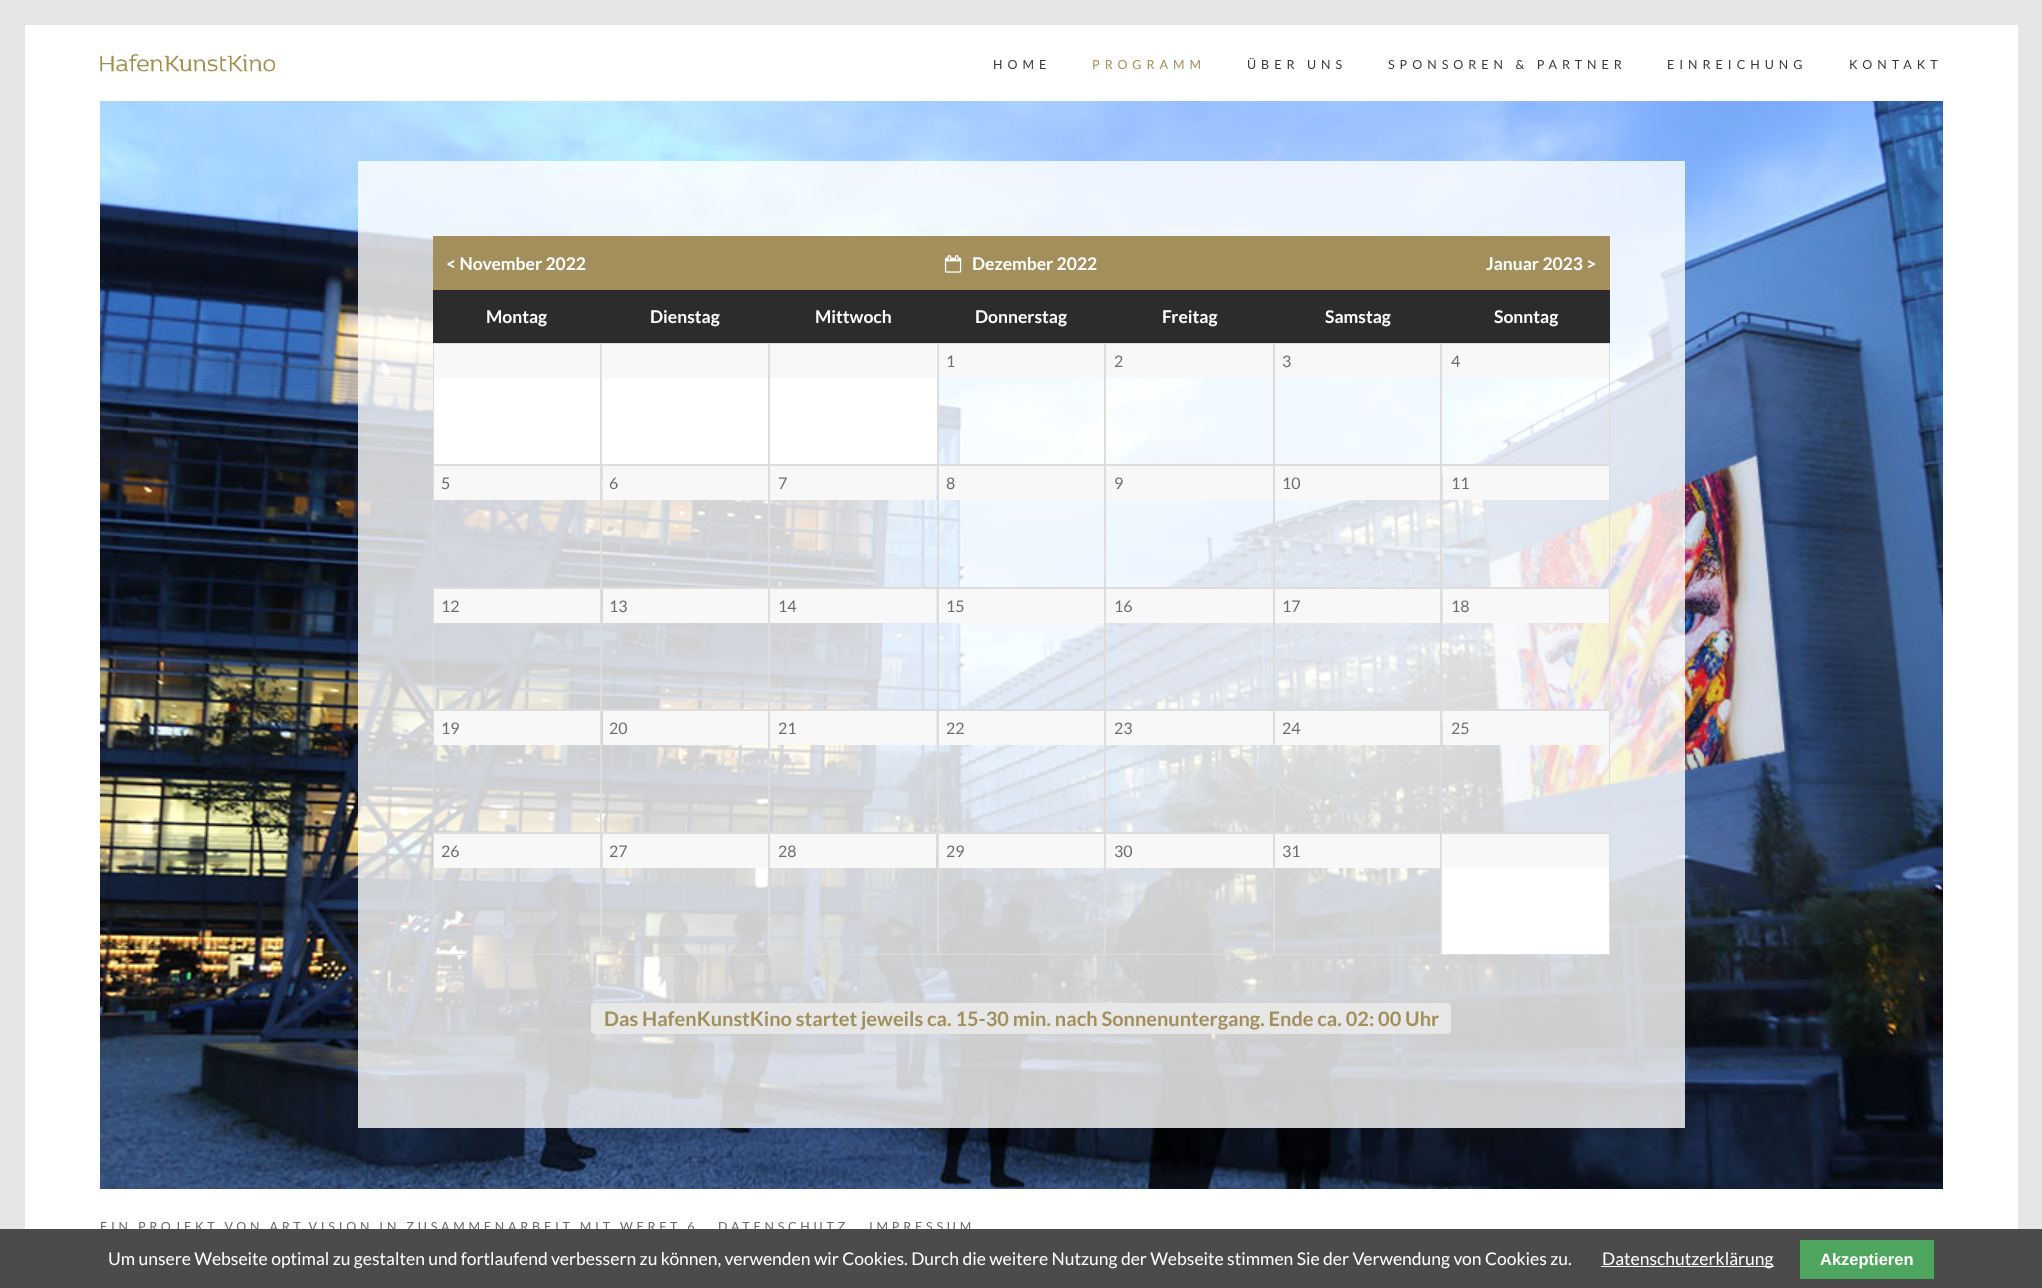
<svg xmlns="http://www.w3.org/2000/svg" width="2042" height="1288">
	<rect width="100%" height="100%" fill="#FFFFFF" />
	<rect x="0" y="25" width="25" height="1204" fill="#E6E6E6" />
	<rect x="0" y="0" width="2042" height="25" fill="#E6E6E6" />
	<image x="100" y="54" width="175" height="18" href="assets/img1.png" />
	<text x="993" y="69" font-family="Lato" font-size="12.5" letter-spacing="5" fill="#393939">HOME</text>
	<text x="1092" y="69" font-family="Lato" font-size="12.5" letter-spacing="5" fill="#A38F5C">PROGRAMM</text>
	<g font-family="Lato" font-size="12.5" letter-spacing="5" fill="#393939">
		<text x="1247" y="69">ÜBER UNS</text>
		<text x="1388" y="69">SPONSOREN &amp; PARTNER</text>
		<text x="1667" y="69">EINREICHUNG</text>
		<text x="1849" y="69">KONTAKT</text>
	</g>
	<image x="100" y="101" width="1843" height="1088" href="assets/img2.png" />
	<rect x="358" y="161" width="1327" height="967" fill="#FFFFFF" fill-opacity="0.8" />
	<rect x="433" y="236" width="1177" height="54" fill="#A38F5C" />
	<text x="446" y="270" font-family="Lato" font-size="17.5" font-weight="700" fill="#FFFFFF">&lt; November 2022</text>
	<image x="944" y="255" width="18" height="18" href="assets/img3.png" />
	<g font-family="Lato" font-size="17.5" font-weight="700" fill="#FFFFFF">
		<text x="972" y="270">Dezember 2022</text>
		<text x="1486" y="270">Januar 2023 &gt;</text>
	</g>
	<rect x="433" y="290" width="1177" height="53" fill="#2C2C2C" />
	<g font-family="Lato" font-size="17.5" font-weight="700" fill="#FFFFFF">
		<text x="486" y="323">Montag</text>
		<text x="650" y="323">Dienstag</text>
		<text x="815" y="323">Mittwoch</text>
		<text x="975" y="323">Donnerstag</text>
		<text x="1162" y="323">Freitag</text>
		<text x="1325" y="323">Samstag</text>
		<text x="1494" y="323">Sonntag</text>
	</g>
	<rect x="434" y="378" width="166" height="86" fill="#FFFFFF" />
	<rect x="433.5" y="343.5" width="167" height="121" fill="none" stroke="#DDDDDD" />
	<rect x="434" y="344" width="166" height="34" fill="#F8F8F8" />
	<rect x="601.5" y="343.5" width="167" height="121" fill="#FFFFFF" stroke="#DDDDDD" />
	<rect x="603" y="344" width="165" height="34" fill="#F8F8F8" />
	<rect x="769.5" y="343.5" width="168" height="121" fill="#FFFFFF" stroke="#DDDDDD" />
	<rect x="770" y="344" width="166" height="34" fill="#F8F8F8" />
	<rect x="938.5" y="343.5" width="166" height="121" fill="none" stroke="#DDDDDD" />
	<rect x="939" y="344" width="165" height="34" fill="#F8F8F8" />
	<text x="946" y="367" font-family="Lato" font-size="16" fill="#6E6D6D">1</text>
	<rect x="1105.5" y="343.5" width="168" height="121" fill="none" stroke="#DDDDDD" />
	<rect x="1106" y="344" width="167" height="34" fill="#F8F8F8" />
	<text x="1114" y="367" font-family="Lato" font-size="16" fill="#6E6D6D">2</text>
	<rect x="1274.5" y="343.5" width="166" height="121" fill="none" stroke="#DDDDDD" />
	<rect x="1275" y="344" width="165" height="34" fill="#F8F8F8" />
	<text x="1282" y="367" font-family="Lato" font-size="16" fill="#6E6D6D">3</text>
	<rect x="1441.5" y="343.5" width="168" height="121" fill="none" stroke="#DDDDDD" />
	<rect x="1443" y="344" width="166" height="34" fill="#F8F8F8" />
	<text x="1451" y="367" font-family="Lato" font-size="16" fill="#6E6D6D">4</text>
	<rect x="433.5" y="465.5" width="167" height="122" fill="none" stroke="#DDDDDD" />
	<rect x="434" y="466" width="166" height="34" fill="#F8F8F8" />
	<text x="441" y="489" font-family="Lato" font-size="16" fill="#6E6D6D">5</text>
	<rect x="601.5" y="465.5" width="167" height="122" fill="none" stroke="#DDDDDD" />
	<rect x="603" y="466" width="165" height="34" fill="#F8F8F8" />
	<text x="609" y="489" font-family="Lato" font-size="16" fill="#6E6D6D">6</text>
	<rect x="769.5" y="465.5" width="168" height="122" fill="none" stroke="#DDDDDD" />
	<rect x="770" y="466" width="166" height="34" fill="#F8F8F8" />
	<text x="778" y="489" font-family="Lato" font-size="16" fill="#6E6D6D">7</text>
	<rect x="938.5" y="465.5" width="166" height="122" fill="none" stroke="#DDDDDD" />
	<rect x="939" y="466" width="165" height="34" fill="#F8F8F8" />
	<text x="946" y="489" font-family="Lato" font-size="16" fill="#6E6D6D">8</text>
	<rect x="1105.5" y="465.5" width="168" height="122" fill="none" stroke="#DDDDDD" />
	<rect x="1106" y="466" width="167" height="34" fill="#F8F8F8" />
	<text x="1114" y="489" font-family="Lato" font-size="16" fill="#6E6D6D">9</text>
	<rect x="1274.5" y="465.5" width="166" height="122" fill="none" stroke="#DDDDDD" />
	<rect x="1275" y="466" width="165" height="34" fill="#F8F8F8" />
	<text x="1282" y="489" font-family="Lato" font-size="16" fill="#6E6D6D">10</text>
	<rect x="1441.5" y="465.5" width="168" height="122" fill="none" stroke="#DDDDDD" />
	<rect x="1443" y="466" width="166" height="34" fill="#F8F8F8" />
	<text x="1451" y="489" font-family="Lato" font-size="16" fill="#6E6D6D">11</text>
	<rect x="433.5" y="588.5" width="167" height="121" fill="none" stroke="#DDDDDD" />
	<rect x="434" y="589" width="166" height="34" fill="#F8F8F8" />
	<text x="441" y="612" font-family="Lato" font-size="16" fill="#6E6D6D">12</text>
	<rect x="601.5" y="588.5" width="167" height="121" fill="none" stroke="#DDDDDD" />
	<rect x="603" y="589" width="165" height="34" fill="#F8F8F8" />
	<text x="609" y="612" font-family="Lato" font-size="16" fill="#6E6D6D">13</text>
	<rect x="769.5" y="588.5" width="168" height="121" fill="none" stroke="#DDDDDD" />
	<rect x="770" y="589" width="166" height="34" fill="#F8F8F8" />
	<text x="778" y="612" font-family="Lato" font-size="16" fill="#6E6D6D">14</text>
	<rect x="938.5" y="588.5" width="166" height="121" fill="none" stroke="#DDDDDD" />
	<rect x="939" y="589" width="165" height="34" fill="#F8F8F8" />
	<text x="946" y="612" font-family="Lato" font-size="16" fill="#6E6D6D">15</text>
	<rect x="1105.5" y="588.5" width="168" height="121" fill="none" stroke="#DDDDDD" />
	<rect x="1106" y="589" width="167" height="34" fill="#F8F8F8" />
	<text x="1114" y="612" font-family="Lato" font-size="16" fill="#6E6D6D">16</text>
	<rect x="1274.5" y="588.5" width="166" height="121" fill="none" stroke="#DDDDDD" />
	<rect x="1275" y="589" width="165" height="34" fill="#F8F8F8" />
	<text x="1282" y="612" font-family="Lato" font-size="16" fill="#6E6D6D">17</text>
	<rect x="1441.5" y="588.5" width="168" height="121" fill="none" stroke="#DDDDDD" />
	<rect x="1443" y="589" width="166" height="34" fill="#F8F8F8" />
	<text x="1451" y="612" font-family="Lato" font-size="16" fill="#6E6D6D">18</text>
	<rect x="433.5" y="710.5" width="167" height="122" fill="none" stroke="#DDDDDD" />
	<rect x="434" y="711" width="166" height="34" fill="#F8F8F8" />
	<text x="441" y="734" font-family="Lato" font-size="16" fill="#6E6D6D">19</text>
	<rect x="601.5" y="710.5" width="167" height="122" fill="none" stroke="#DDDDDD" />
	<rect x="603" y="711" width="165" height="34" fill="#F8F8F8" />
	<text x="609" y="734" font-family="Lato" font-size="16" fill="#6E6D6D">20</text>
	<rect x="769.5" y="710.5" width="168" height="122" fill="none" stroke="#DDDDDD" />
	<rect x="770" y="711" width="166" height="34" fill="#F8F8F8" />
	<text x="778" y="734" font-family="Lato" font-size="16" fill="#6E6D6D">21</text>
	<rect x="938.5" y="710.5" width="166" height="122" fill="none" stroke="#DDDDDD" />
	<rect x="939" y="711" width="165" height="34" fill="#F8F8F8" />
	<text x="946" y="734" font-family="Lato" font-size="16" fill="#6E6D6D">22</text>
	<rect x="1105.5" y="710.5" width="168" height="122" fill="none" stroke="#DDDDDD" />
	<rect x="1106" y="711" width="167" height="34" fill="#F8F8F8" />
	<text x="1114" y="734" font-family="Lato" font-size="16" fill="#6E6D6D">23</text>
	<rect x="1274.5" y="710.5" width="166" height="122" fill="none" stroke="#DDDDDD" />
	<rect x="1275" y="711" width="165" height="34" fill="#F8F8F8" />
	<text x="1282" y="734" font-family="Lato" font-size="16" fill="#6E6D6D">24</text>
	<rect x="1441.5" y="710.5" width="168" height="122" fill="none" stroke="#DDDDDD" />
	<rect x="1443" y="711" width="166" height="34" fill="#F8F8F8" />
	<text x="1451" y="734" font-family="Lato" font-size="16" fill="#6E6D6D">25</text>
	<rect x="433.5" y="833.5" width="167" height="121" fill="none" stroke="#DDDDDD" />
	<rect x="434" y="834" width="166" height="34" fill="#F8F8F8" />
	<text x="441" y="857" font-family="Lato" font-size="16" fill="#6E6D6D">26</text>
	<rect x="601.5" y="833.5" width="167" height="121" fill="none" stroke="#DDDDDD" />
	<rect x="603" y="834" width="165" height="34" fill="#F8F8F8" />
	<text x="609" y="857" font-family="Lato" font-size="16" fill="#6E6D6D">27</text>
	<rect x="769.5" y="833.5" width="168" height="121" fill="none" stroke="#DDDDDD" />
	<rect x="770" y="834" width="166" height="34" fill="#F8F8F8" />
	<text x="778" y="857" font-family="Lato" font-size="16" fill="#6E6D6D">28</text>
	<rect x="938.5" y="833.5" width="166" height="121" fill="none" stroke="#DDDDDD" />
	<rect x="939" y="834" width="165" height="34" fill="#F8F8F8" />
	<text x="946" y="857" font-family="Lato" font-size="16" fill="#6E6D6D">29</text>
	<rect x="1105.5" y="833.5" width="168" height="121" fill="none" stroke="#DDDDDD" />
	<rect x="1106" y="834" width="167" height="34" fill="#F8F8F8" />
	<text x="1114" y="857" font-family="Lato" font-size="16" fill="#6E6D6D">30</text>
	<rect x="1274.5" y="833.5" width="166" height="121" fill="none" stroke="#DDDDDD" />
	<rect x="1275" y="834" width="165" height="34" fill="#F8F8F8" />
	<text x="1282" y="857" font-family="Lato" font-size="16" fill="#6E6D6D">31</text>
	<rect x="1441.5" y="833.5" width="168" height="121" fill="#FFFFFF" stroke="#DDDDDD" />
	<rect x="1443" y="834" width="166" height="34" fill="#F8F8F8" />
	<rect x="591" y="1003" width="860" height="31" rx="4" fill="#E7E7E7" />
	<text x="604" y="1026" font-family="Lato" font-size="20" font-weight="700" fill="#A38F5C">Das HafenKunstKino startet jeweils ca. 15-30 min. nach Sonnenuntergang. Ende ca. 02: 00 Uhr</text>
	<g font-family="Lato" font-size="12.5" letter-spacing="3.75" fill="#686868">
		<text x="100" y="1231">EIN PROJEKT VON ART.VISION IN ZUSAMMENARBEIT MIT WERFT 6</text>
		<text x="718" y="1231">DATENSCHUTZ</text>
		<text x="869" y="1231">IMPRESSUM</text>
	</g>
	<rect x="0" y="1229" width="2042" height="59" fill="#4B4B4B" />
	<text x="108" y="1265" font-family="Lato" font-size="17.5" fill="#FFFFFF">Um unsere Webseite optimal zu gestalten und fortlaufend verbessern zu können, verwenden wir Cookies. Durch die weitere Nutzung der Webseite stimmen Sie der Verwendung von Cookies zu.</text>
	<rect x="1601" y="1266" width="173" height="1" fill="#FFFFFF" />
	<text x="1602" y="1265" font-family="Lato" font-size="17.5" fill="#FFFFFF">Datenschutzerklärung</text>
	<rect x="1800" y="1240" width="134" height="39" fill="#4EA55E" />
	<text x="1820" y="1265" font-family="Liberation Sans" font-size="16.5" font-weight="700" fill="#FFFFFF">Akzeptieren</text>
	<rect x="2018" y="25" width="24" height="1204" fill="#E6E6E6" />
</svg>
